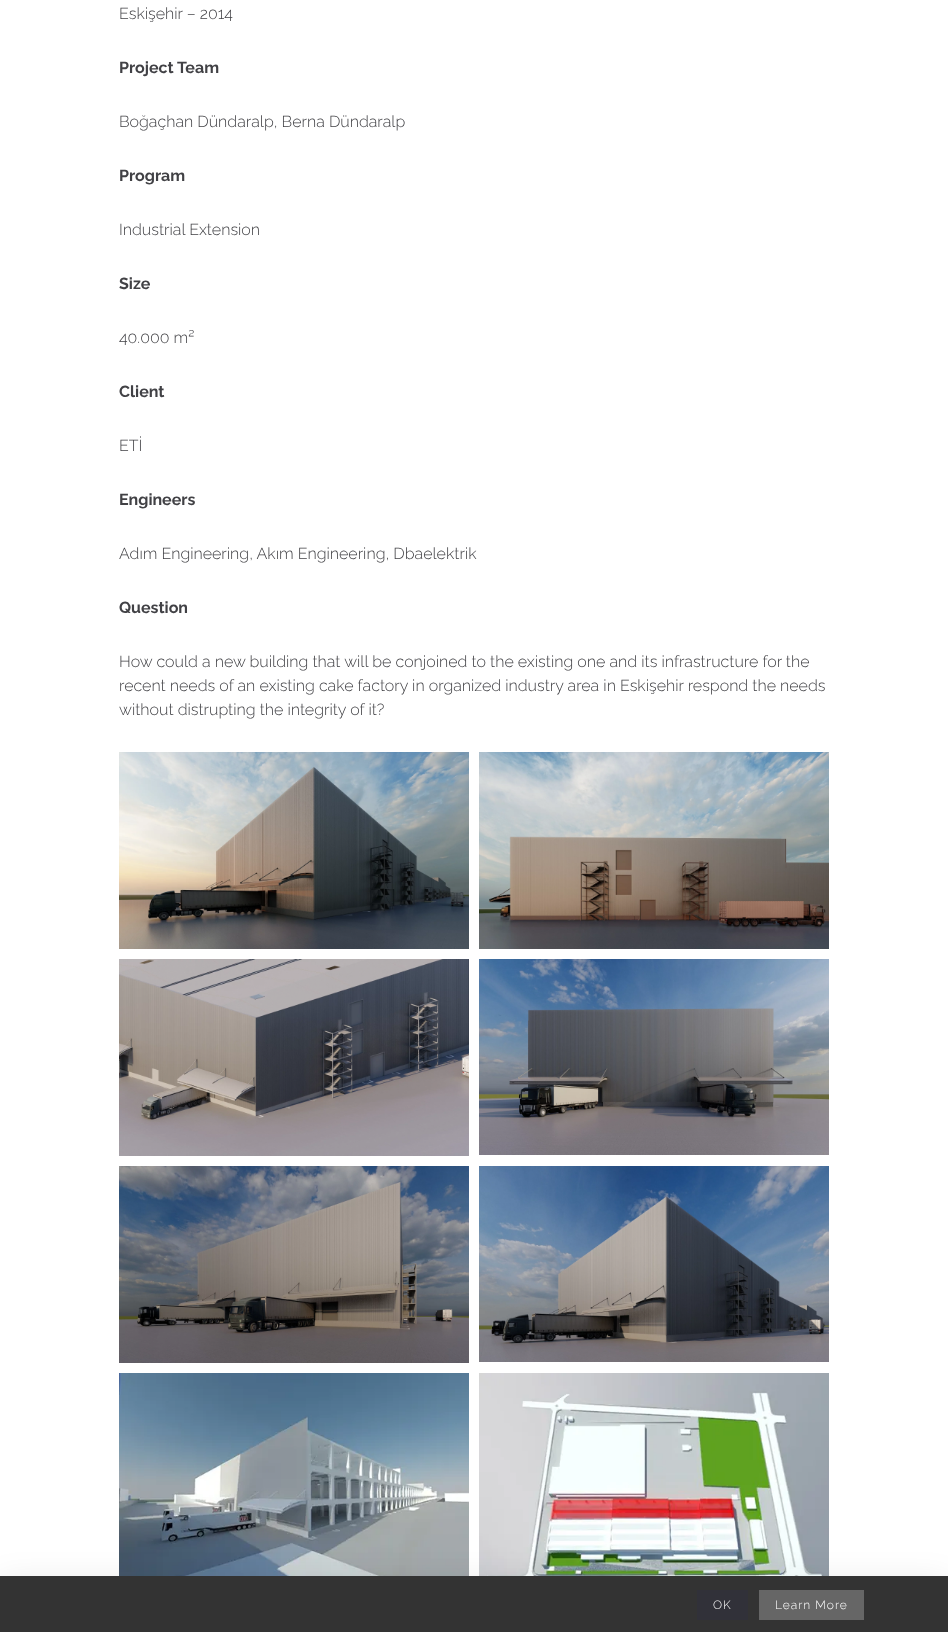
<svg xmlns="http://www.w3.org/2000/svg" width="948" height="1632">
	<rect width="100%" height="100%" fill="#FFFFFF" />
	<text x="119" y="19" font-family="Raleway" font-size="16" font-weight="300" fill="#414145">Eskişehir – 2014</text>
	<text x="119" y="73" font-family="Raleway" font-size="16" font-weight="700" fill="#414145">Project Team</text>
	<text x="119" y="127" font-family="Raleway" font-size="16" font-weight="300" fill="#414145">Boğaçhan Dündaralp, Berna Dündaralp</text>
	<text x="119" y="181" font-family="Raleway" font-size="16" font-weight="700" fill="#414145">Program</text>
	<text x="119" y="235" font-family="Raleway" font-size="16" font-weight="300" fill="#414145">Industrial Extension</text>
	<text x="119" y="289" font-family="Raleway" font-size="16" font-weight="700" fill="#414145">Size</text>
	<text x="119" y="343" font-family="Raleway" font-size="16" font-weight="300" fill="#414145">40.000 m²</text>
	<text x="119" y="397" font-family="Raleway" font-size="16" font-weight="700" fill="#414145">Client</text>
	<text x="119" y="451" font-family="Raleway" font-size="16" font-weight="300" fill="#414145">ETİ</text>
	<text x="119" y="505" font-family="Raleway" font-size="16" font-weight="700" fill="#414145">Engineers</text>
	<text x="119" y="559" font-family="Raleway" font-size="16" font-weight="300" fill="#414145">Adım Engineering, Akım Engineering, Dbaelektrik</text>
	<text x="119" y="613" font-family="Raleway" font-size="16" font-weight="700" fill="#414145">Question</text>
	<g font-family="Raleway" font-size="16" font-weight="300" fill="#414145">
		<text x="119" y="667">How could a new building that will be conjoined to the existing one and its infrastructure for the</text>
		<text x="119" y="691">recent needs of an existing cake factory in organized industry area in Eskişehir respond the needs</text>
		<text x="119" y="715">without distrupting the integrity of it?</text>
	</g>
	<image x="119" y="752" width="350" height="197" href="assets/img1.png" />
	<image x="479" y="752" width="350" height="197" href="assets/img2.png" />
	<image x="119" y="959" width="350" height="197" href="assets/img3.png" />
	<image x="479" y="959" width="350" height="196" href="assets/img4.png" />
	<image x="119" y="1166" width="350" height="197" href="assets/img5.png" />
	<image x="479" y="1166" width="350" height="196" href="assets/img6.png" />
	<image x="119" y="1373" width="350" height="203" href="assets/img7.png" />
	<image x="479" y="1373" width="350" height="203" href="assets/img8.png" />
	<rect x="0" y="1583" width="948" height="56" fill="#000000" fill-opacity="0.1" filter="blur(16.5px)" />
	<rect x="0" y="1576" width="948" height="56" fill="#333333" />
	<rect x="697" y="1590" width="51" height="30" fill="#313139" />
	<text x="713" y="1609" font-family="Raleway" font-size="12" font-weight="300" letter-spacing="1" fill="#FFFFFF">OK</text>
	<rect x="759" y="1590" width="105" height="30" fill="#666666" />
	<text x="775" y="1609" font-family="Raleway" font-size="12" font-weight="300" letter-spacing="1" fill="#FFFFFF">Learn More</text>
</svg>
